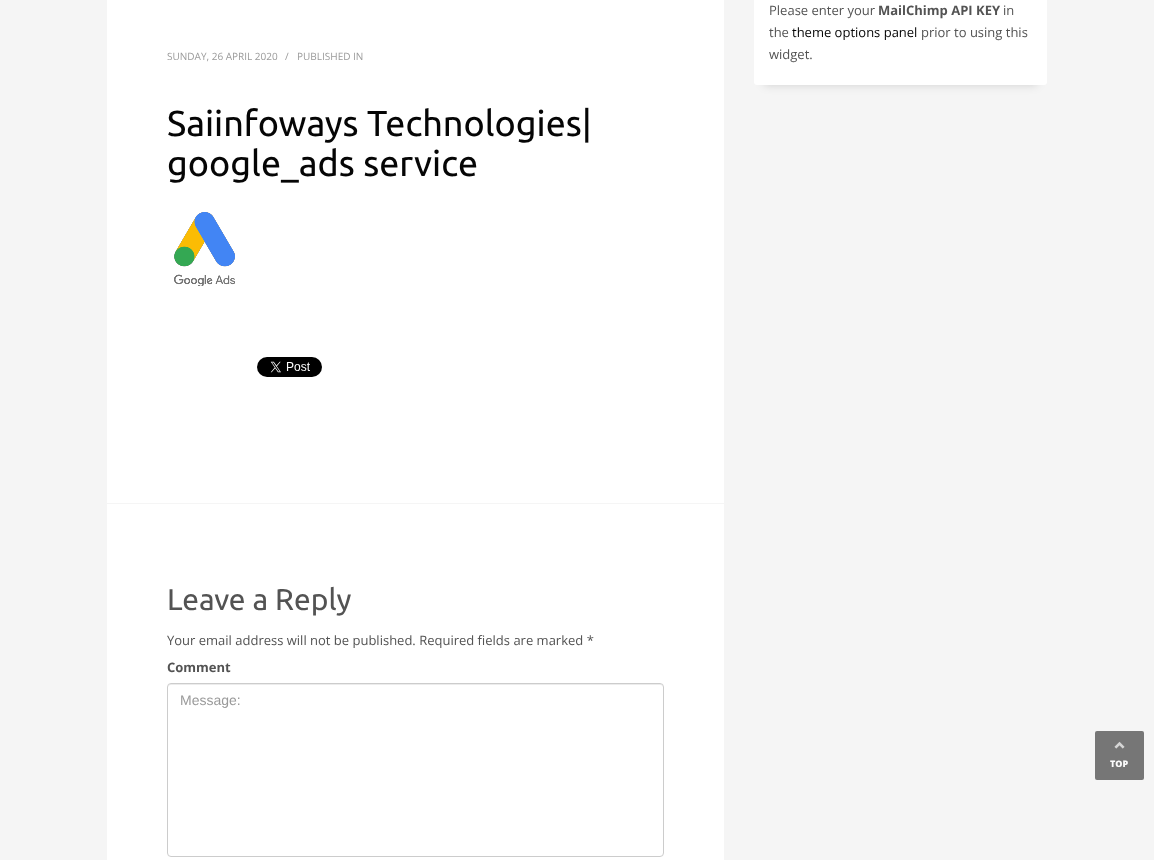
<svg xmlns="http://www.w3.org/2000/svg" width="1154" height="860">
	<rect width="100%" height="100%" fill="#F5F5F5" />
	<rect x="764" y="-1" width="273" height="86" fill="#000000" fill-opacity="0.15" filter="blur(5px)" />
	<rect x="754" y="-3" width="293" height="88" rx="3" fill="#FFFFFF" />
	<text x="769" y="15" font-family="Open Sans" font-size="13" fill="#535353">Please enter your</text>
	<text x="878" y="15" font-family="Open Sans" font-size="13" font-weight="700" fill="#535353">MailChimp API KEY</text>
	<g font-family="Open Sans" font-size="13" fill="#535353">
		<text x="1003" y="15">in</text>
		<text x="769" y="37">the</text>
	</g>
	<text x="792" y="37" font-family="Open Sans" font-size="13" fill="#050505">theme options panel</text>
	<g font-family="Open Sans" font-size="13" fill="#535353">
		<text x="921" y="37">prior to using this</text>
		<text x="769" y="59">widget.</text>
	</g>
	<rect x="107" y="0" width="617" height="503" fill="#FFFFFF" />
	<g font-family="Open Sans" font-size="10" fill="#9A9A9A">
		<text x="167" y="60">SUNDAY, 26 APRIL 2020</text>
		<text x="285" y="60">/</text>
		<text x="297" y="60">PUBLISHED IN</text>
	</g>
	<g font-family="Ubuntu" font-size="36" fill="#050505">
		<text x="167" y="136">Saiinfoways Technologies|</text>
		<text x="167" y="176">google_ads service</text>
	</g>
	<image x="174" y="212" width="61" height="74" href="assets/img1.png" />
	<image x="257" y="357" width="65" height="20" href="assets/img2.png" />
	<rect x="107" y="504" width="617" height="356" fill="#FFFFFF" />
	<text x="167" y="610" font-family="Ubuntu" font-size="30" fill="#535353">Leave a Reply</text>
	<text x="167" y="645" font-family="Open Sans" font-size="13" fill="#535353">Your email address will not be published. Required fields are marked *</text>
	<text x="167" y="672" font-family="Open Sans" font-size="13" font-weight="700" fill="#535353">Comment</text>
	<path d="M171 685H660C662 685 663 686 663 688C663 686 662 684 660 684H171C169 684 168 686 168 688C168 686 169 685 171 685Z" fill="#ECECEC" />
	<rect x="167.5" y="683.5" width="496" height="173" rx="3.5" fill="none" stroke="#CCCCCC" />
	<text x="180" y="705" font-family="Liberation Sans" font-size="14" fill="#9A9A9A">Message:</text>
	<rect x="1095" y="731" width="49" height="49" rx="2" fill="#767676" />
	<image x="1114" y="741" width="11" height="8" href="assets/img3.png" />
	<text x="1110" y="767" font-family="Open Sans" font-size="9" font-weight="800" fill="#FCFCFC">TOP</text>
</svg>
